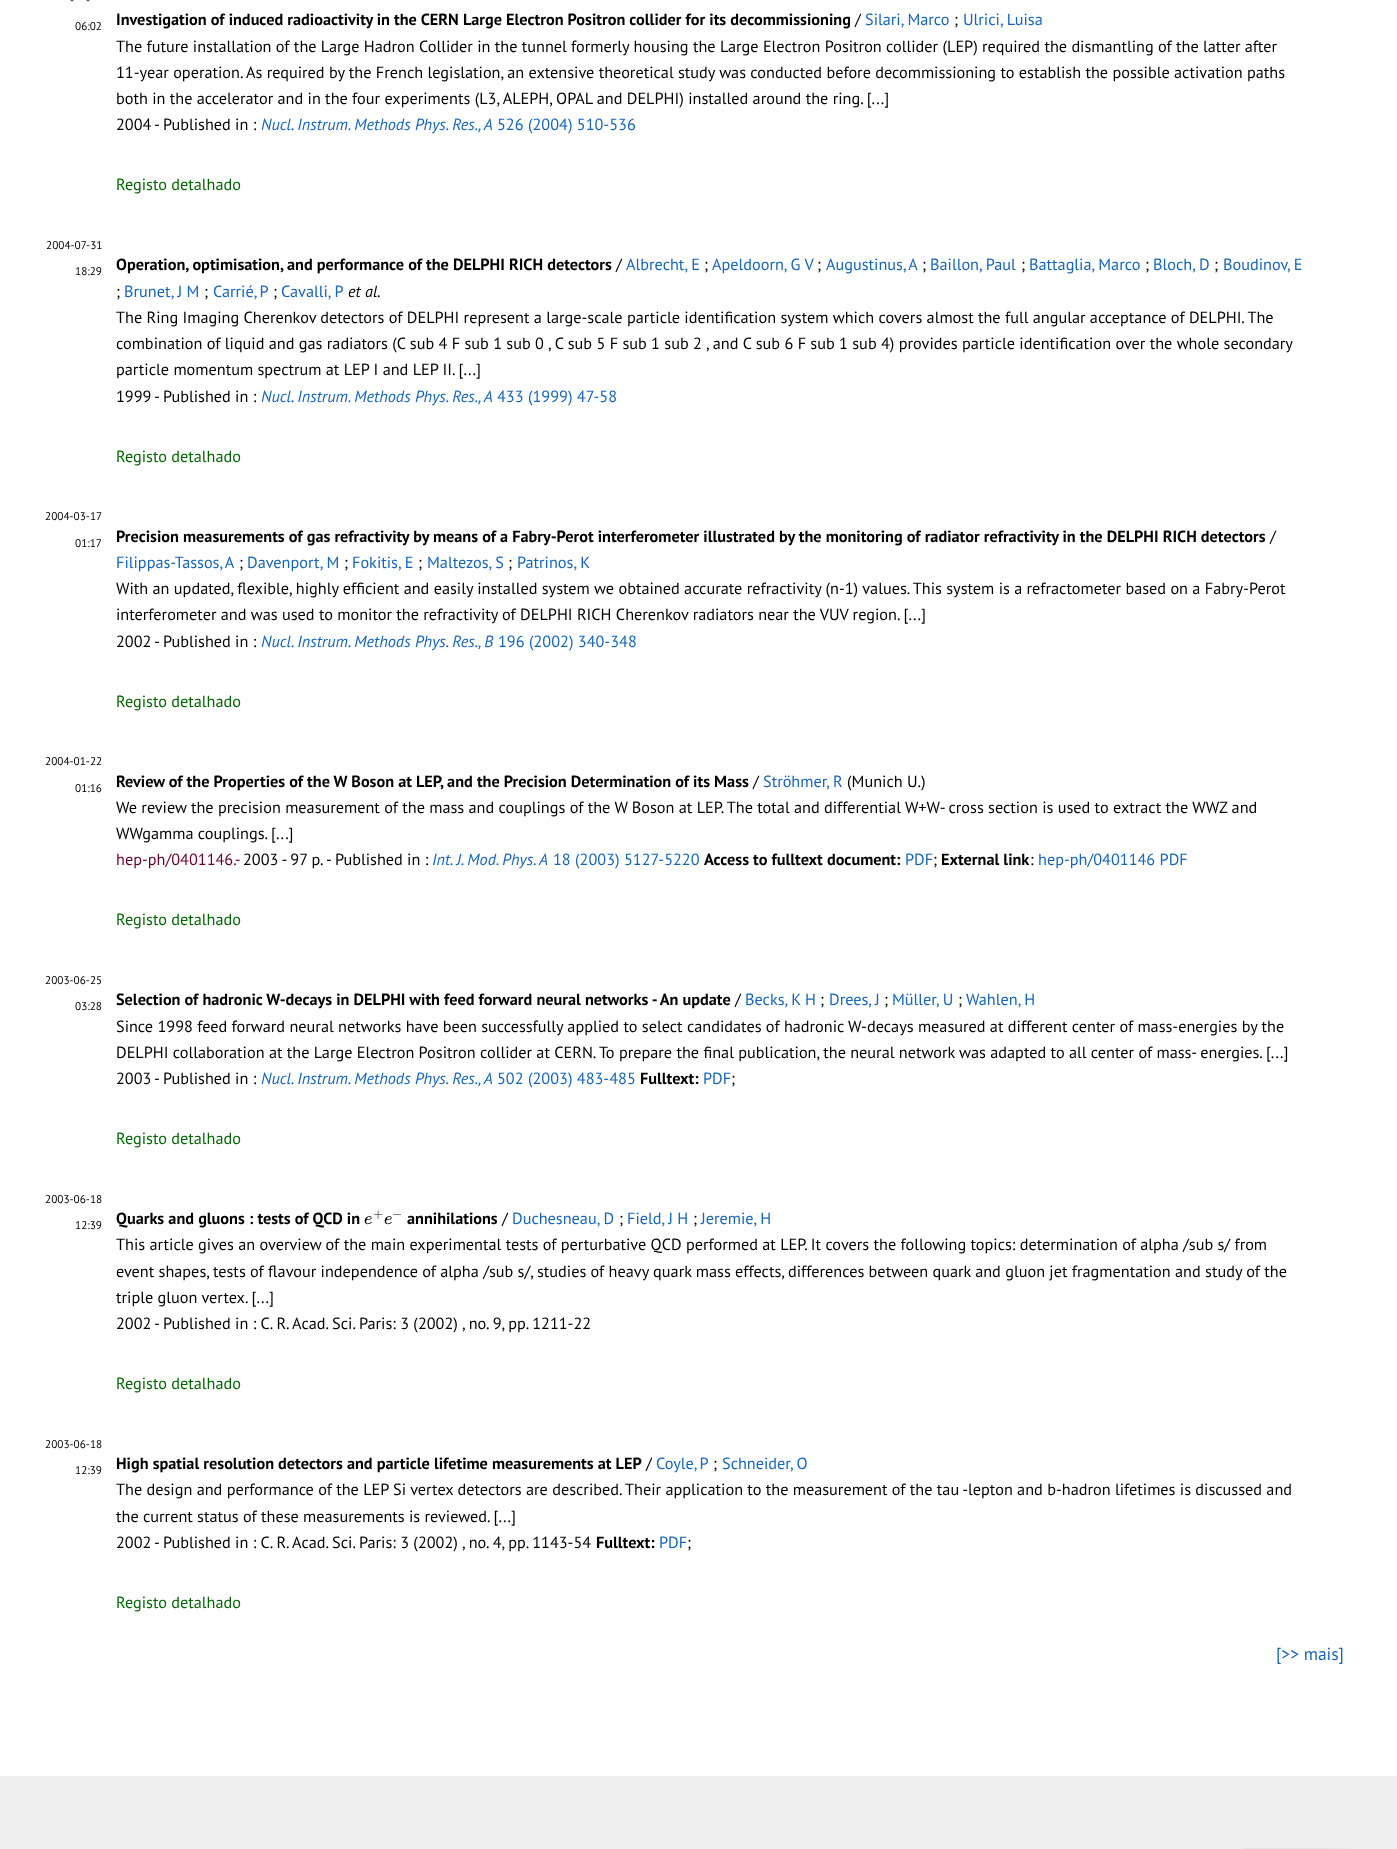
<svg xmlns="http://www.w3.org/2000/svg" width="1397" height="1849">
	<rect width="100%" height="100%" fill="#FFFFFF" />
	<g font-family="PT Sans" font-size="11.25" fill="#000000">
		<text x="70" y="4">-</text>
		<text x="86" y="4">-</text>
		<text x="75" y="30">06:02</text>
	</g>
	<text x="116" y="25" font-family="PT Sans" font-size="16.25" font-weight="700" fill="#000000">Investigation of induced radioactivity in the CERN Large Electron Positron collider for its decommissioning</text>
	<text x="855" y="25" font-family="PT Sans" font-size="16.25" fill="#000000">/</text>
	<text x="865" y="25" font-family="PT Sans" font-size="16.25" fill="#1565BA">Silari, Marco</text>
	<text x="954" y="25" font-family="PT Sans" font-size="16.25" fill="#000000">;</text>
	<text x="963" y="25" font-family="PT Sans" font-size="16.25" fill="#1565BA">Ulrici, Luisa</text>
	<g font-family="PT Sans" font-size="16.25" fill="#000000">
		<text x="116" y="52">The future installation of the Large Hadron Collider in the tunnel formerly housing the Large Electron Positron collider (LEP) required the dismantling of the latter after</text>
		<text x="116" y="78">11-year operation. As required by the French legislation, an extensive theoretical study was conducted before decommissioning to establish the possible activation paths</text>
		<text x="116" y="104">both in the accelerator and in the four experiments (L3, ALEPH, OPAL and DELPHI) installed around the ring. [...]</text>
		<text x="116" y="130">2004</text>
		<text x="154" y="130">- Published in :</text>
	</g>
	<text x="261" y="130" font-family="PT Sans" font-size="16.25" font-style="italic" fill="#1565BA">Nucl. Instrum. Methods Phys. Res., A</text>
	<text x="497" y="130" font-family="PT Sans" font-size="16.25" fill="#1565BA">526 (2004) 510-536</text>
	<text x="116" y="190" font-family="PT Sans" font-size="16.25" fill="#006600">Registo detalhado</text>
	<g font-family="PT Sans" font-size="11.25" fill="#000000">
		<text x="46" y="249">2004-07-31</text>
		<text x="75" y="275">18:29</text>
	</g>
	<text x="116" y="270" font-family="PT Sans" font-size="16.25" font-weight="700" fill="#000000">Operation, optimisation, and performance of the DELPHI RICH detectors</text>
	<text x="616" y="270" font-family="PT Sans" font-size="16.25" fill="#000000">/</text>
	<text x="626" y="270" font-family="PT Sans" font-size="16.25" fill="#1565BA">Albrecht, E</text>
	<text x="704" y="270" font-family="PT Sans" font-size="16.25" fill="#000000">;</text>
	<text x="712" y="270" font-family="PT Sans" font-size="16.25" fill="#1565BA">Apeldoorn, G V</text>
	<text x="817" y="270" font-family="PT Sans" font-size="16.25" fill="#000000">;</text>
	<text x="826" y="270" word-spacing="-1" font-family="PT Sans" font-size="16.25" fill="#1565BA">Augustinus, A</text>
	<text x="922" y="270" font-family="PT Sans" font-size="16.25" fill="#000000">;</text>
	<text x="930" y="270" font-family="PT Sans" font-size="16.25" fill="#1565BA">Baillon, Paul</text>
	<text x="1021" y="270" font-family="PT Sans" font-size="16.25" fill="#000000">;</text>
	<text x="1029" y="270" font-family="PT Sans" font-size="16.25" fill="#1565BA">Battaglia, Marco</text>
	<text x="1145" y="270" font-family="PT Sans" font-size="16.25" fill="#000000">;</text>
	<text x="1153" y="270" font-family="PT Sans" font-size="16.25" fill="#1565BA">Bloch, D</text>
	<text x="1214" y="270" font-family="PT Sans" font-size="16.25" fill="#000000">;</text>
	<text x="1223" y="270" font-family="PT Sans" font-size="16.25" fill="#1565BA">Boudinov, E</text>
	<text x="116" y="297" font-family="PT Sans" font-size="16.25" fill="#000000">;</text>
	<text x="124" y="297" font-family="PT Sans" font-size="16.25" fill="#1565BA">Brunet, J M</text>
	<text x="204" y="297" font-family="PT Sans" font-size="16.25" fill="#000000">;</text>
	<text x="213" y="297" word-spacing="-1" font-family="PT Sans" font-size="16.25" fill="#1565BA">Carrié, P</text>
	<text x="273" y="297" font-family="PT Sans" font-size="16.25" fill="#000000">;</text>
	<text x="281" y="297" font-family="PT Sans" font-size="16.25" fill="#1565BA">Cavalli, P</text>
	<text x="348" y="297" font-family="PT Sans" font-size="16.25" font-style="italic" fill="#000000">et al.</text>
	<g font-family="PT Sans" font-size="16.25" fill="#000000">
		<text x="116" y="323">The Ring Imaging Cherenkov detectors of DELPHI represent a large-scale particle identification system which covers almost the full angular acceptance of DELPHI. The</text>
		<text x="116" y="349">combination of liquid and gas radiators (C sub 4 F sub 1 sub 0 , C sub 5 F sub 1 sub 2 , and C sub 6 F sub 1 sub 4) provides particle identification over the whole secondary</text>
		<text x="116" y="375">particle momentum spectrum at LEP I and LEP II. [...]</text>
		<text x="116" y="402">1999</text>
		<text x="154" y="402">- Published in :</text>
	</g>
	<text x="261" y="402" font-family="PT Sans" font-size="16.25" font-style="italic" fill="#1565BA">Nucl. Instrum. Methods Phys. Res., A</text>
	<text x="497" y="402" font-family="PT Sans" font-size="16.25" fill="#1565BA">433 (1999) 47-58</text>
	<text x="116" y="462" font-family="PT Sans" font-size="16.25" fill="#006600">Registo detalhado</text>
	<g font-family="PT Sans" font-size="11.25" fill="#000000">
		<text x="45" y="520">2004-03-17</text>
		<text x="75" y="547">01:17</text>
	</g>
	<text x="116" y="542" font-family="PT Sans" font-size="16.25" font-weight="700" fill="#000000">Precision measurements of gas refractivity by means of a Fabry-Perot interferometer illustrated by the monitoring of radiator refractivity in the DELPHI RICH detectors</text>
	<text x="1270" y="542" font-family="PT Sans" font-size="16.25" fill="#000000">/</text>
	<text x="116" y="568" word-spacing="-1" font-family="PT Sans" font-size="16.25" fill="#1565BA">Filippas-Tassos, A</text>
	<text x="239" y="568" font-family="PT Sans" font-size="16.25" fill="#000000">;</text>
	<text x="247" y="568" font-family="PT Sans" font-size="16.25" fill="#1565BA">Davenport, M</text>
	<text x="344" y="568" font-family="PT Sans" font-size="16.25" fill="#000000">;</text>
	<text x="352" y="568" font-family="PT Sans" font-size="16.25" fill="#1565BA">Fokitis, E</text>
	<text x="418" y="568" font-family="PT Sans" font-size="16.25" fill="#000000">;</text>
	<text x="427" y="568" font-family="PT Sans" font-size="16.25" fill="#1565BA">Maltezos, S</text>
	<text x="508" y="568" font-family="PT Sans" font-size="16.25" fill="#000000">;</text>
	<text x="517" y="568" font-family="PT Sans" font-size="16.25" fill="#1565BA">Patrinos, K</text>
	<g font-family="PT Sans" font-size="16.25" fill="#000000">
		<text x="116" y="594">With an updated, flexible, highly efficient and easily installed system we obtained accurate refractivity (n-1) values. This system is a refractometer based on a Fabry-Perot</text>
		<text x="116" y="620">interferometer and was used to monitor the refractivity of DELPHI RICH Cherenkov radiators near the VUV region. [...]</text>
		<text x="116" y="647">2002</text>
		<text x="154" y="647">- Published in :</text>
	</g>
	<text x="261" y="647" font-family="PT Sans" font-size="16.25" font-style="italic" fill="#1565BA">Nucl. Instrum. Methods Phys. Res., B</text>
	<text x="498" y="647" font-family="PT Sans" font-size="16.25" fill="#1565BA">196 (2002) 340-348</text>
	<text x="116" y="707" font-family="PT Sans" font-size="16.25" fill="#006600">Registo detalhado</text>
	<g font-family="PT Sans" font-size="11.25" fill="#000000">
		<text x="45" y="765">2004-01-22</text>
		<text x="75" y="792">01:16</text>
	</g>
	<text x="116" y="787" font-family="PT Sans" font-size="16.25" font-weight="700" fill="#000000">Review of the Properties of the W Boson at LEP, and the Precision Determination of its Mass</text>
	<text x="753" y="787" font-family="PT Sans" font-size="16.25" fill="#000000">/</text>
	<text x="763" y="787" font-family="PT Sans" font-size="16.25" fill="#1565BA">Ströhmer, R</text>
	<g font-family="PT Sans" font-size="16.25" fill="#000000">
		<text x="847" y="787">(Munich U.)</text>
		<text x="116" y="813">We review the precision measurement of the mass and couplings of the W Boson at LEP. The total and differential W+W- cross section is used to extract the WWZ and</text>
		<text x="116" y="839">WWgamma couplings. [...]</text>
	</g>
	<text x="116" y="865" font-family="PT Sans" font-size="16.25" fill="#660033">hep-ph/0401146.-</text>
	<g font-family="PT Sans" font-size="16.25" fill="#000000">
		<text x="243" y="865">2003 - 97 p.</text>
		<text x="326" y="865">- Published in :</text>
	</g>
	<text x="432" y="865" font-family="PT Sans" font-size="16.25" font-style="italic" fill="#1565BA">Int. J. Mod. Phys. A</text>
	<text x="553" y="865" font-family="PT Sans" font-size="16.25" fill="#1565BA">18 (2003) 5127-5220</text>
	<text x="704" y="865" font-family="PT Sans" font-size="16.25" font-weight="700" fill="#000000">Access to fulltext document:</text>
	<text x="905" y="865" font-family="PT Sans" font-size="16.25" fill="#1565BA">PDF</text>
	<text x="933" y="865" font-family="PT Sans" font-size="16.25" fill="#000000">;</text>
	<text x="941" y="865" font-family="PT Sans" font-size="16.25" font-weight="700" fill="#000000">External link</text>
	<text x="1030" y="865" font-family="PT Sans" font-size="16.25" fill="#000000">:</text>
	<text x="1038" y="865" font-family="PT Sans" font-size="16.25" fill="#1565BA">hep-ph/0401146 PDF</text>
	<text x="116" y="925" font-family="PT Sans" font-size="16.25" fill="#006600">Registo detalhado</text>
	<g font-family="PT Sans" font-size="11.25" fill="#000000">
		<text x="45" y="984">2003-06-25</text>
		<text x="75" y="1010">03:28</text>
	</g>
	<text x="116" y="1005" font-family="PT Sans" font-size="16.25" font-weight="700" fill="#000000">Selection of hadronic W-decays in DELPHI with feed forward neural networks - An update</text>
	<text x="735" y="1005" font-family="PT Sans" font-size="16.25" fill="#000000">/</text>
	<text x="745" y="1005" font-family="PT Sans" font-size="16.25" fill="#1565BA">Becks, K H</text>
	<text x="820" y="1005" font-family="PT Sans" font-size="16.25" fill="#000000">;</text>
	<text x="829" y="1005" font-family="PT Sans" font-size="16.25" fill="#1565BA">Drees, J</text>
	<text x="884" y="1005" font-family="PT Sans" font-size="16.25" fill="#000000">;</text>
	<text x="892" y="1005" font-family="PT Sans" font-size="16.25" fill="#1565BA">Müller, U</text>
	<text x="958" y="1005" font-family="PT Sans" font-size="16.25" fill="#000000">;</text>
	<text x="966" y="1005" font-family="PT Sans" font-size="16.25" fill="#1565BA">Wahlen, H</text>
	<g font-family="PT Sans" font-size="16.25" fill="#000000">
		<text x="116" y="1032">Since 1998 feed forward neural networks have been successfully applied to select candidates of hadronic W-decays measured at different center of mass-energies by the</text>
		<text x="116" y="1058">DELPHI collaboration at the Large Electron Positron collider at CERN. To prepare the final publication, the neural network was adapted to all center of mass- energies. [...]</text>
		<text x="116" y="1084">2003</text>
		<text x="154" y="1084">- Published in :</text>
	</g>
	<text x="261" y="1084" font-family="PT Sans" font-size="16.25" font-style="italic" fill="#1565BA">Nucl. Instrum. Methods Phys. Res., A</text>
	<text x="497" y="1084" font-family="PT Sans" font-size="16.25" fill="#1565BA">502 (2003) 483-485</text>
	<text x="640" y="1084" font-family="PT Sans" font-size="16.25" font-weight="700" fill="#000000">Fulltext:</text>
	<text x="703" y="1084" font-family="PT Sans" font-size="16.25" fill="#1565BA">PDF</text>
	<text x="731" y="1084" font-family="PT Sans" font-size="16.25" fill="#000000">;</text>
	<text x="116" y="1144" font-family="PT Sans" font-size="16.25" fill="#006600">Registo detalhado</text>
	<g font-family="PT Sans" font-size="11.25" fill="#000000">
		<text x="45" y="1203">2003-06-18</text>
		<text x="75" y="1229">12:39</text>
	</g>
	<text x="116" y="1224" font-family="PT Sans" font-size="16.25" font-weight="700" fill="#000000">Quarks and gluons : tests of QCD in</text>
	<text x="364" y="1224" font-family="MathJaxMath" font-size="18" font-style="italic" fill="#000000">e</text>
	<g font-family="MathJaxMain" font-size="13" fill="#000000">
		<text x="373" y="1218">+</text>
		<text x="392" y="1218">−</text>
	</g>
	<text x="384" y="1224" font-family="MathJaxMath" font-size="18" font-style="italic" fill="#000000">e</text>
	<text x="407" y="1224" font-family="PT Sans" font-size="16.25" font-weight="700" fill="#000000">annihilations</text>
	<text x="502" y="1224" font-family="PT Sans" font-size="16.25" fill="#000000">/</text>
	<text x="512" y="1224" font-family="PT Sans" font-size="16.25" fill="#1565BA">Duchesneau, D</text>
	<text x="619" y="1224" font-family="PT Sans" font-size="16.25" fill="#000000">;</text>
	<text x="627" y="1224" font-family="PT Sans" font-size="16.25" fill="#1565BA">Field, J H</text>
	<text x="693" y="1224" font-family="PT Sans" font-size="16.25" fill="#000000">;</text>
	<text x="701" y="1224" font-family="PT Sans" font-size="16.25" fill="#1565BA">Jeremie, H</text>
	<g font-family="PT Sans" font-size="16.25" fill="#000000">
		<text x="116" y="1250">This article gives an overview of the main experimental tests of perturbative QCD performed at LEP. It covers the following topics: determination of alpha /sub s/ from</text>
		<text x="116" y="1277">event shapes, tests of flavour independence of alpha /sub s/, studies of heavy quark mass effects, differences between quark and gluon jet fragmentation and study of the</text>
		<text x="116" y="1303">triple gluon vertex. [...]</text>
		<text x="116" y="1329">2002</text>
		<text x="154" y="1329">- Published in : C. R. Acad. Sci. Paris: 3 (2002) , no. 9, pp. 1211-22</text>
	</g>
	<text x="116" y="1389" font-family="PT Sans" font-size="16.25" fill="#006600">Registo detalhado</text>
	<g font-family="PT Sans" font-size="11.25" fill="#000000">
		<text x="45" y="1448">2003-06-18</text>
		<text x="75" y="1474">12:39</text>
	</g>
	<text x="116" y="1469" font-family="PT Sans" font-size="16.25" font-weight="700" fill="#000000">High spatial resolution detectors and particle lifetime measurements at LEP</text>
	<text x="646" y="1469" font-family="PT Sans" font-size="16.25" fill="#000000">/</text>
	<text x="656" y="1469" word-spacing="-1" font-family="PT Sans" font-size="16.25" fill="#1565BA">Coyle, P</text>
	<text x="713" y="1469" font-family="PT Sans" font-size="16.25" fill="#000000">;</text>
	<text x="722" y="1469" font-family="PT Sans" font-size="16.25" fill="#1565BA">Schneider, O</text>
	<g font-family="PT Sans" font-size="16.25" fill="#000000">
		<text x="116" y="1495">The design and performance of the LEP Si vertex detectors are described. Their application to the measurement of the tau -lepton and b-hadron lifetimes is discussed and</text>
		<text x="116" y="1522">the current status of these measurements is reviewed. [...]</text>
		<text x="116" y="1548">2002</text>
		<text x="154" y="1548">- Published in : C. R. Acad. Sci. Paris: 3 (2002) , no. 4, pp. 1143-54</text>
	</g>
	<text x="596" y="1548" font-family="PT Sans" font-size="16.25" font-weight="700" fill="#000000">Fulltext:</text>
	<text x="659" y="1548" font-family="PT Sans" font-size="16.25" fill="#1565BA">PDF</text>
	<text x="687" y="1548" font-family="PT Sans" font-size="16.25" fill="#000000">;</text>
	<text x="116" y="1608" font-family="PT Sans" font-size="16.25" fill="#006600">Registo detalhado</text>
	<text x="1276" y="1660" font-family="PT Sans" font-size="17.5" fill="#1565BA">[&gt;&gt; mais]</text>
	<rect x="0" y="1776" width="1397" height="73" fill="#EEEEEE" />
	<image x="1242" y="1848" width="106" height="1" href="assets/img1.png" />
</svg>
